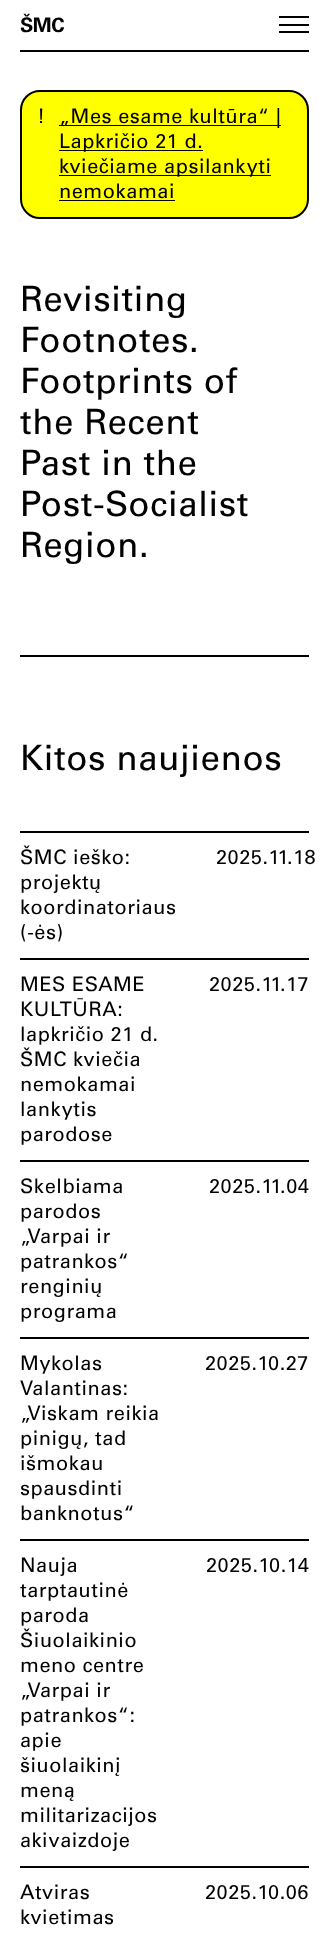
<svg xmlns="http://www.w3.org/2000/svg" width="329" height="1936">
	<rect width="100%" height="100%" fill="#FFFFFF" />
	<rect x="20" y="50" width="289" height="2" fill="#000000" />
	<text x="20" y="32" font-family="Univers" font-size="20" font-weight="700" letter-spacing="-0.5" fill="#000000">ŠMC</text>
	<rect x="279" y="16" width="30" height="2" fill="#000000" />
	<rect x="279" y="24" width="30" height="2" fill="#000000" />
	<rect x="279" y="31" width="30" height="2" fill="#000000" />
	<rect x="21" y="91" width="287" height="127" rx="19" fill="#FFFF00" stroke="#000000" stroke-width="2" />
	<text x="37" y="123" font-family="Univers" font-size="20" letter-spacing="0.5" fill="#000000">!</text>
	<rect x="59" y="125" width="222" height="1" fill="#000000" />
	<text x="59" y="123" font-family="Univers" font-size="20" letter-spacing="0.5" fill="#000000">„Mes esame kultūra“ |</text>
	<rect x="59" y="150" width="144" height="1" fill="#000000" />
	<text x="59" y="148" font-family="Univers" font-size="20" letter-spacing="0.5" fill="#000000">Lapkričio 21 d.</text>
	<rect x="59" y="175" width="212" height="1" fill="#000000" />
	<g font-family="Univers" font-size="20" letter-spacing="0.5" fill="#000000">
		<text x="59" y="173">kviečiame apsilankyti</text>
		<text x="59" y="198">nemokamai</text>
	</g>
	<rect x="59" y="200" width="116" height="1" fill="#000000" />
	<g font-family="Univers" font-size="35" letter-spacing="0.5" fill="#000000">
		<text x="20" y="311">Revisiting</text>
		<text x="20" y="352">Footnotes.</text>
		<text x="20" y="393">Footprints of</text>
		<text x="20" y="434">the Recent</text>
		<text x="20" y="475">Past in the</text>
		<text x="20" y="516">Post-Socialist</text>
		<text x="20" y="557">Region.</text>
	</g>
	<rect x="20" y="655" width="289" height="2" fill="#000000" />
	<text x="20" y="770" font-family="Univers" font-size="35" letter-spacing="0.5" fill="#000000">Kitos naujienos</text>
	<rect x="20" y="831" width="289" height="2" fill="#000000" />
	<rect x="20" y="958" width="289" height="2" fill="#000000" />
	<g font-family="Univers" font-size="20" letter-spacing="0.5" fill="#000000">
		<text x="20" y="864">ŠMC ieško:</text>
		<text x="20" y="889">projektų</text>
		<text x="20" y="914">koordinatoriaus</text>
		<text x="20" y="939">(-ės)</text>
		<text x="216" y="864">2025.11.18</text>
	</g>
	<rect x="20" y="1160" width="289" height="2" fill="#000000" />
	<g font-family="Univers" font-size="20" letter-spacing="0.5" fill="#000000">
		<text x="20" y="991">MES ESAME</text>
		<text x="20" y="1016">KULTŪRA:</text>
		<text x="20" y="1041">lapkričio 21 d.</text>
		<text x="20" y="1066">ŠMC kviečia</text>
		<text x="20" y="1091">nemokamai</text>
		<text x="20" y="1116">lankytis</text>
		<text x="20" y="1141">parodose</text>
		<text x="209" y="991">2025.11.17</text>
	</g>
	<rect x="20" y="1337" width="289" height="2" fill="#000000" />
	<g font-family="Univers" font-size="20" letter-spacing="0.5" fill="#000000">
		<text x="20" y="1193">Skelbiama</text>
		<text x="20" y="1218">parodos</text>
		<text x="20" y="1243">„Varpai ir</text>
		<text x="20" y="1268">patrankos“</text>
		<text x="20" y="1293">renginių</text>
		<text x="20" y="1318">programa</text>
		<text x="209" y="1193">2025.11.04</text>
	</g>
	<rect x="20" y="1539" width="289" height="2" fill="#000000" />
	<g font-family="Univers" font-size="20" letter-spacing="0.5" fill="#000000">
		<text x="20" y="1370">Mykolas</text>
		<text x="20" y="1395">Valantinas:</text>
		<text x="20" y="1420">„Viskam reikia</text>
		<text x="20" y="1445">pinigų, tad</text>
		<text x="20" y="1470">išmokau</text>
		<text x="20" y="1495">spausdinti</text>
		<text x="20" y="1520">banknotus“</text>
		<text x="205" y="1370">2025.10.27</text>
	</g>
	<rect x="20" y="1866" width="289" height="2" fill="#000000" />
	<g font-family="Univers" font-size="20" letter-spacing="0.5" fill="#000000">
		<text x="20" y="1572">Nauja</text>
		<text x="20" y="1597">tarptautinė</text>
		<text x="20" y="1622">paroda</text>
		<text x="20" y="1647">Šiuolaikinio</text>
		<text x="20" y="1672">meno centre</text>
		<text x="20" y="1697">„Varpai ir</text>
		<text x="20" y="1722">patrankos“:</text>
		<text x="20" y="1747">apie</text>
		<text x="20" y="1772">šiuolaikinį</text>
		<text x="20" y="1797">meną</text>
		<text x="20" y="1822">militarizacijos</text>
		<text x="20" y="1847">akivaizdoje</text>
		<text x="206" y="1572">2025.10.14</text>
		<text x="20" y="1899">Atviras</text>
		<text x="20" y="1924">kvietimas</text>
		<text x="205" y="1899">2025.10.06</text>
	</g>
</svg>
